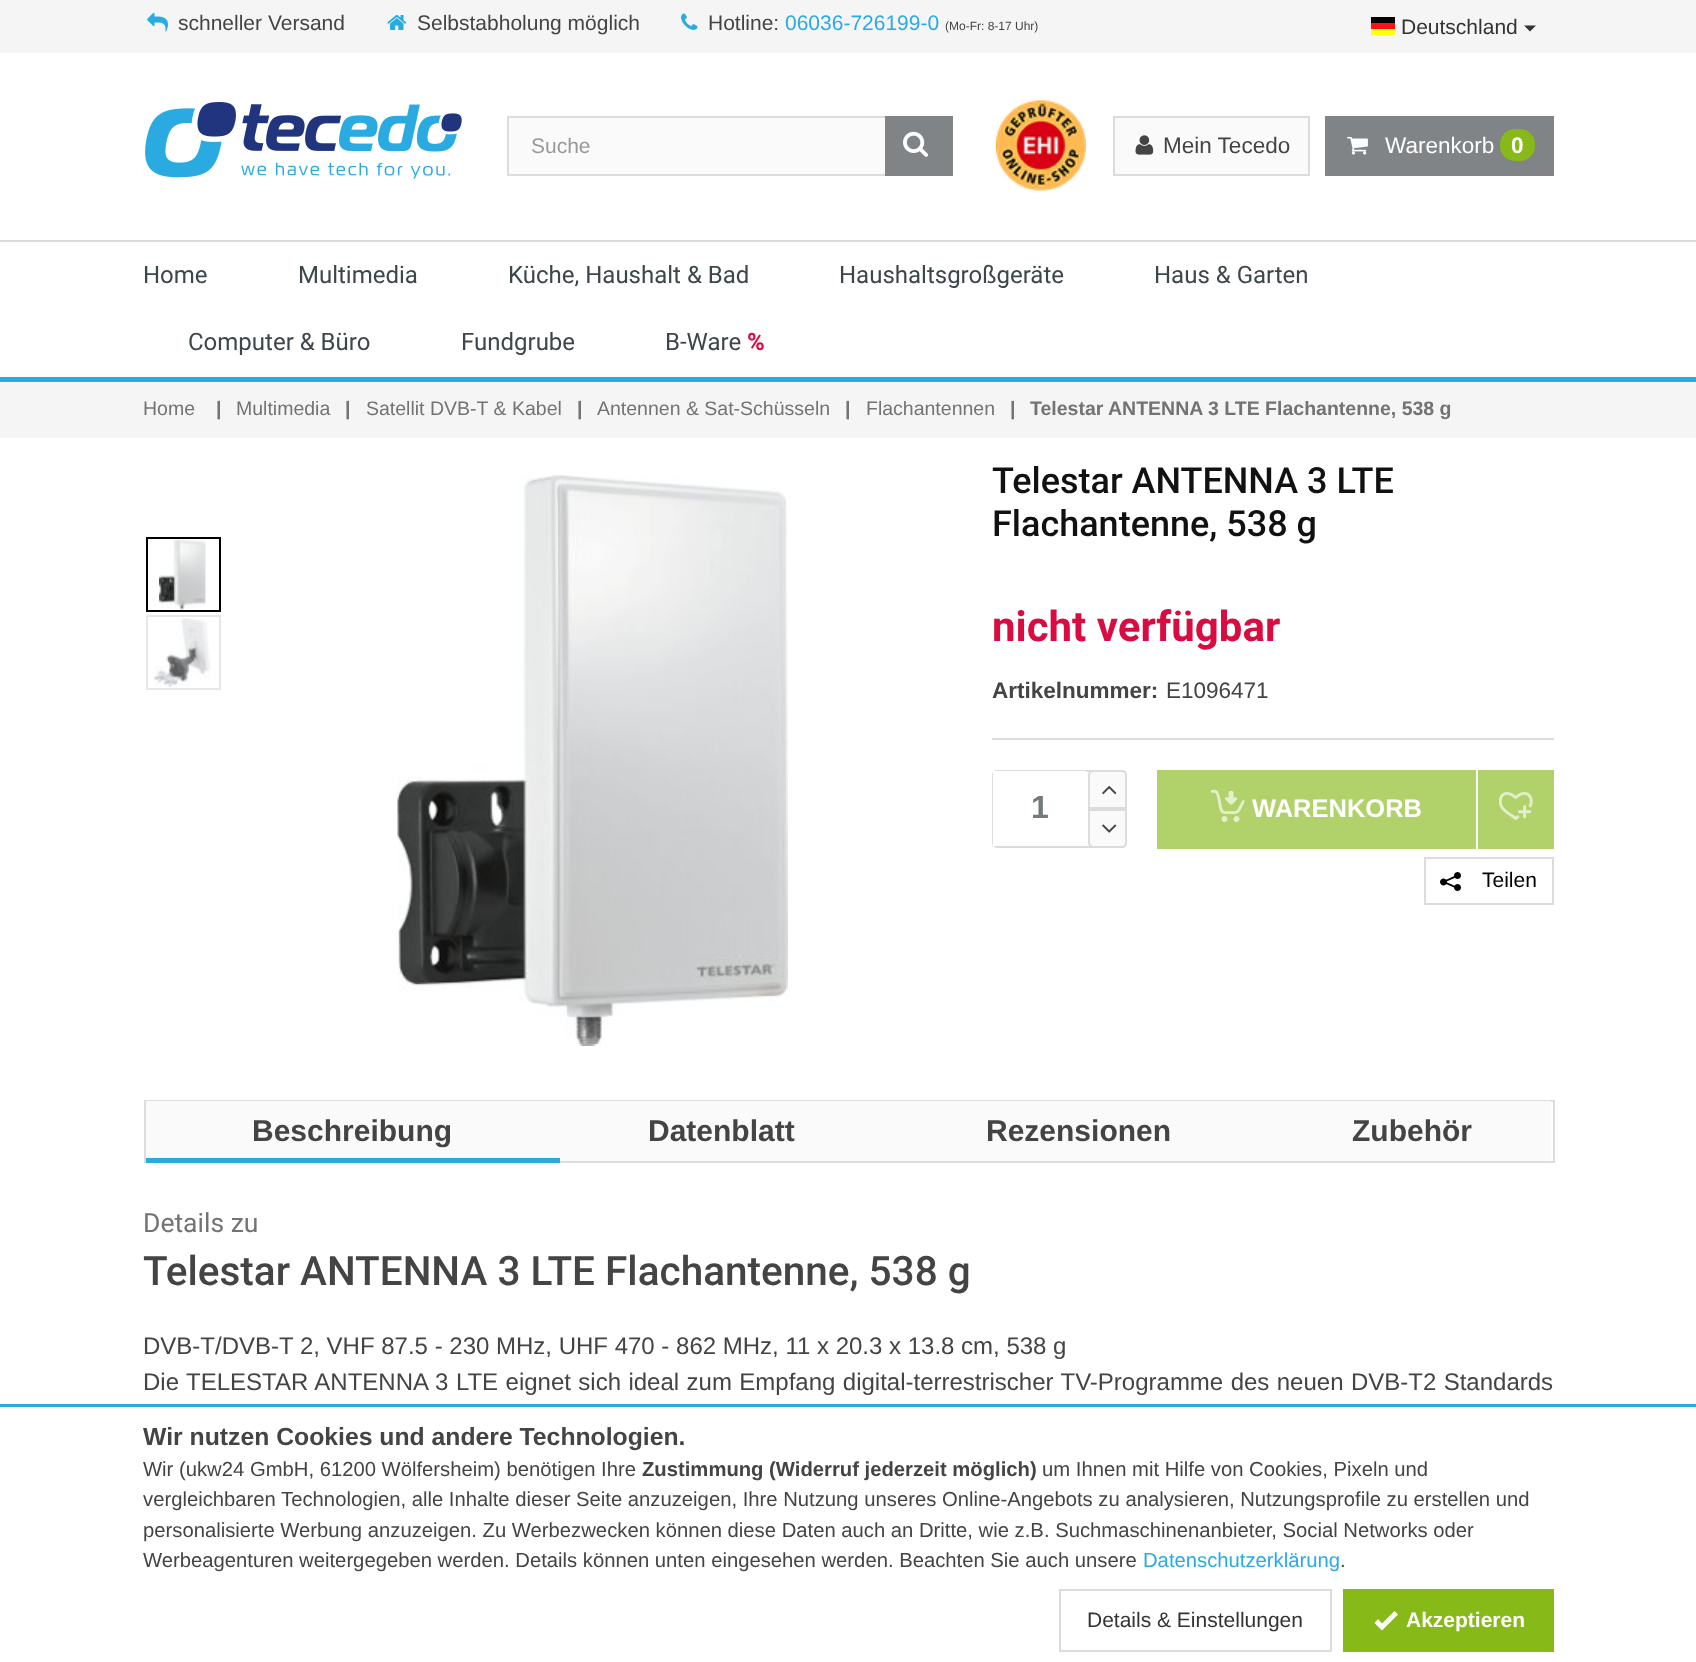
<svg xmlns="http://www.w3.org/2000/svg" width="1696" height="1662">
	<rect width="100%" height="100%" fill="#FFFFFF" />
	<rect x="0" y="0" width="1696" height="53" fill="#F5F5F5" />
	<image x="147" y="12" width="21" height="20" href="assets/img1.png" />
	<text x="178" y="30" font-family="Liberation Sans" font-size="21" fill="#444444">schneller Versand</text>
	<image x="387" y="15" width="20" height="15" href="assets/img2.png" />
	<text x="417" y="30" font-family="Liberation Sans" font-size="21" fill="#444444">Selbstabholung möglich</text>
	<image x="681" y="13" width="17" height="17" href="assets/img3.png" />
	<text x="708" y="30" font-family="Liberation Sans" font-size="21" fill="#444444">Hotline:</text>
	<text x="785" y="30" font-family="Liberation Sans" font-size="21" fill="#29ABE2">06036-726199-0</text>
	<text x="945" y="30" font-family="Liberation Sans" font-size="12" fill="#444444">(Mo-Fr: 8-17 Uhr)</text>
	<rect x="1371" y="23" width="24" height="6" fill="#FD1111" />
	<rect x="1371" y="17" width="24" height="6" fill="#000000" />
	<rect x="1371" y="29" width="24" height="6" fill="#FFFF11" />
	<text x="1401" y="34" font-family="Liberation Sans" font-size="21" fill="#333333">Deutschland</text>
	<path d="M1524 25.5H1536L1530 31.5Z" fill="#333333" />
	<image x="145" y="102" width="317" height="77" href="assets/img4.png" />
	<rect x="509" y="118" width="376" height="56" fill="#FAFAFA" />
	<rect x="507" y="116" width="380" height="2" fill="#DCDCDC" />
	<rect x="507" y="174" width="380" height="2" fill="#DCDCDC" />
	<rect x="507" y="116" width="2" height="60" fill="#DCDCDC" />
	<text x="531" y="153" font-family="Liberation Sans" font-size="21" fill="#999999">Suche</text>
	<rect x="885" y="116" width="68" height="60" fill="#818487" />
	<image x="903" y="131" width="25" height="26" href="assets/img5.png" />
	<image x="996" y="100" width="90" height="91" href="assets/img6.png" />
	<rect x="1114" y="117" width="195" height="58" fill="#FAFAFA" stroke="#DCDCDC" stroke-width="2" />
	<image x="1135" y="135" width="19" height="20" href="assets/img7.png" />
	<text x="1163" y="153" font-family="Liberation Sans" font-size="22.5" fill="#444444">Mein Tecedo</text>
	<rect x="1325" y="116" width="229" height="60" fill="#818487" />
	<image x="1347" y="136" width="21" height="19" href="assets/img8.png" />
	<text x="1385" y="153" font-family="Liberation Sans" font-size="22.5" fill="#FFFFFF">Warenkorb</text>
	<rect x="1500" y="129" width="35" height="32" rx="15" fill="#87B919" />
	<text x="1511" y="153" font-family="Liberation Sans" font-size="22.5" font-weight="700" fill="#FFFFFF">0</text>
	<rect x="0" y="240" width="1696" height="2" fill="#DCDCDC" />
	<rect x="0" y="377" width="1696" height="5" fill="#29ABE2" />
	<g font-family="Roboto" font-size="24" fill="#3D474B">
		<text x="143" y="283">Home</text>
		<text x="298" y="283">Multimedia</text>
		<text x="508" y="283">Küche, Haushalt &amp; Bad</text>
		<text x="839" y="283">Haushaltsgroßgeräte</text>
		<text x="1154" y="283">Haus &amp; Garten</text>
		<text x="188" y="350">Computer &amp; Büro</text>
		<text x="461" y="350">Fundgrube</text>
		<text x="665" y="350">B-Ware</text>
	</g>
	<text x="747" y="350" font-family="Roboto" font-size="24" font-weight="700" fill="#D90C42">%</text>
	<rect x="0" y="382" width="1696" height="56" fill="#F5F5F5" />
	<text x="143" y="415" font-family="Liberation Sans" font-size="19.5" fill="#737373">Home</text>
	<text x="216" y="415" font-family="Liberation Sans" font-size="19.5" font-weight="700" fill="#737373">|</text>
	<text x="236" y="415" font-family="Liberation Sans" font-size="19.5" fill="#737373">Multimedia</text>
	<text x="345" y="415" font-family="Liberation Sans" font-size="19.5" font-weight="700" fill="#737373">|</text>
	<text x="366" y="415" font-family="Liberation Sans" font-size="19.5" fill="#737373">Satellit DVB-T &amp; Kabel</text>
	<text x="577" y="415" font-family="Liberation Sans" font-size="19.5" font-weight="700" fill="#737373">|</text>
	<text x="597" y="415" font-family="Liberation Sans" font-size="19.5" fill="#737373">Antennen &amp; Sat-Schüsseln</text>
	<text x="845" y="415" font-family="Liberation Sans" font-size="19.5" font-weight="700" fill="#737373">|</text>
	<text x="866" y="415" font-family="Liberation Sans" font-size="19.5" fill="#737373">Flachantennen</text>
	<g font-family="Liberation Sans" font-size="19.5" font-weight="700" fill="#737373">
		<text x="1010" y="415">|</text>
		<text x="1030" y="415">Telestar ANTENNA 3 LTE Flachantenne, 538 g</text>
	</g>
	<image x="159" y="539" width="47" height="71" href="assets/img9.png" />
	<rect x="147" y="538" width="73" height="73" fill="none" stroke="#000000" stroke-width="2" />
	<image x="154" y="617" width="56" height="71" href="assets/img10.png" />
	<rect x="147" y="616" width="73" height="73" fill="none" stroke="#E7E7E7" stroke-width="2" />
	<image x="397" y="475" width="391" height="571" href="assets/img11.png" />
	<g font-family="Roboto" font-size="36" font-weight="500" fill="#111111">
		<text x="992" y="493">Telestar ANTENNA 3 LTE</text>
		<text x="992" y="536">Flachantenne, 538 g</text>
	</g>
	<text x="992" y="641" font-family="Roboto" font-size="42" font-weight="700" fill="#D90C42">nicht verfügbar</text>
	<text x="992" y="698" font-family="Liberation Sans" font-size="22.5" font-weight="700" fill="#444444">Artikelnummer:</text>
	<text x="1166" y="698" font-family="Liberation Sans" font-size="22.5" fill="#444444">E1096471</text>
	<rect x="992" y="738" width="562" height="2" fill="#DCDCDC" />
	<rect x="993" y="771" width="133" height="76" rx="4" fill="none" stroke="#DCDCDC" stroke-width="2" />
	<rect x="993" y="771" width="93" height="75" fill="#FFFFFF" />
	<text x="1031" y="818" font-family="Liberation Sans" font-size="32" font-weight="700" fill="#727B7C">1</text>
	<path d="M1093 771H1122C1124 771 1126 773 1126 775V808H1089V775C1089 773 1091 771 1093 771Z" fill="#FAFAFA" stroke="#DCDCDC" stroke-width="2" />
	<image x="1102" y="785" width="15" height="10" href="assets/img12.png" />
	<path d="M1089 810H1126V843C1126 845 1124 847 1122 847H1093C1091 847 1089 845 1089 843Z" fill="#FAFAFA" stroke="#DCDCDC" stroke-width="2" />
	<image x="1102" y="824" width="15" height="9" href="assets/img13.png" />
	<rect x="1157" y="770" width="319" height="79" fill="#B1D26A" />
	<image x="1211" y="789" width="34" height="33" href="assets/img14.png" />
	<text x="1252" y="817" font-family="Liberation Sans" font-size="25.5" font-weight="700" fill="#FFFFFF">WARENKORB</text>
	<rect x="1478" y="770" width="76" height="79" fill="#B1D26A" />
	<image x="1499" y="792" width="34" height="29" href="assets/img15.png" />
	<rect x="1425" y="858" width="128" height="46" fill="none" stroke="#DCDCDC" stroke-width="2" />
	<image x="1440" y="872" width="21" height="19" href="assets/img16.png" />
	<text x="1482" y="887" font-family="Liberation Sans" font-size="21" fill="#000000">Teilen</text>
	<rect x="560" y="1161" width="994" height="2" fill="#DCDCDC" />
	<rect x="144" y="1100" width="1410" height="2" fill="#DCDCDC" />
	<rect x="1553" y="1100" width="2" height="63" fill="#DCDCDC" />
	<rect x="144" y="1100" width="2" height="63" fill="#DCDCDC" />
	<rect x="146" y="1101" width="414" height="57" fill="#FAFAFA" />
	<text x="252" y="1141" font-family="Liberation Sans" font-size="30" font-weight="700" fill="#444444">Beschreibung</text>
	<rect x="560" y="1101" width="991" height="60" fill="#FAFAFA" />
	<g font-family="Liberation Sans" font-size="30" font-weight="700" fill="#444444">
		<text x="648" y="1141">Datenblatt</text>
		<text x="986" y="1141">Rezensionen</text>
		<text x="1352" y="1141">Zubehör</text>
	</g>
	<rect x="146" y="1158" width="414" height="5" fill="#29ABE2" />
	<text x="143" y="1232" font-family="Roboto" font-size="26.5" fill="#737373">Details zu</text>
	<text x="143" y="1285" font-family="Roboto" font-size="40.5" font-weight="500" fill="#444444">Telestar ANTENNA 3 LTE Flachantenne, 538 g</text>
	<g font-family="Liberation Sans" font-size="24" fill="#444444">
		<text x="143" y="1354">DVB-T/DVB-T 2, VHF 87.5 - 230 MHz, UHF 470 - 862 MHz, 11 x 20.3 x 13.8 cm, 538 g</text>
		<text x="143" y="1390" word-spacing="0.75">Die TELESTAR ANTENNA 3 LTE eignet sich ideal zum Empfang digital-terrestrischer TV-Programme des neuen DVB-T2 Standards</text>
	</g>
	<rect x="0" y="1404" width="1696" height="3" fill="#29ABE2" />
	<text x="143" y="1445" font-family="Liberation Sans" font-size="24.75" font-weight="700" fill="#444444">Wir nutzen Cookies und andere Technologien.</text>
	<text x="143" y="1476" font-family="Liberation Sans" font-size="20.25" fill="#444444">Wir (ukw24 GmbH, 61200 Wölfersheim) benötigen Ihre</text>
	<text x="642" y="1476" font-family="Liberation Sans" font-size="20.25" font-weight="700" fill="#444444">Zustimmung (Widerruf jederzeit möglich)</text>
	<g font-family="Liberation Sans" font-size="20.25" fill="#444444">
		<text x="1042" y="1476">um Ihnen mit Hilfe von Cookies, Pixeln und</text>
		<text x="143" y="1506">vergleichbaren Technologien, alle Inhalte dieser Seite anzuzeigen, Ihre Nutzung unseres Online-Angebots zu analysieren, Nutzungsprofile zu erstellen und</text>
		<text x="143" y="1537">personalisierte Werbung anzuzeigen. Zu Werbezwecken können diese Daten auch an Dritte, wie z.B. Suchmaschinenanbieter, Social Networks oder</text>
		<text x="143" y="1567">Werbeagenturen weitergegeben werden. Details können unten eingesehen werden. Beachten Sie auch unsere</text>
	</g>
	<text x="1143" y="1567" font-family="Liberation Sans" font-size="20.25" fill="#29ABE2">Datenschutzerklärung</text>
	<text x="1340" y="1567" font-family="Liberation Sans" font-size="20.25" fill="#444444">.</text>
	<rect x="1060" y="1590" width="271" height="61" fill="none" stroke="#DCDCDC" stroke-width="2" />
	<text x="1087" y="1627" font-family="Liberation Sans" font-size="21" fill="#333333">Details &amp; Einstellungen</text>
	<rect x="1343" y="1589" width="211" height="63" fill="#87B919" />
	<path d="M1382 1630.5L1374.5 1623L1378 1619L1382 1623.5L1394.5 1611L1398 1614.5Z" fill="#FFFFFF" />
	<text x="1406" y="1627" font-family="Liberation Sans" font-size="21" font-weight="700" fill="#FFFFFF">Akzeptieren</text>
</svg>
